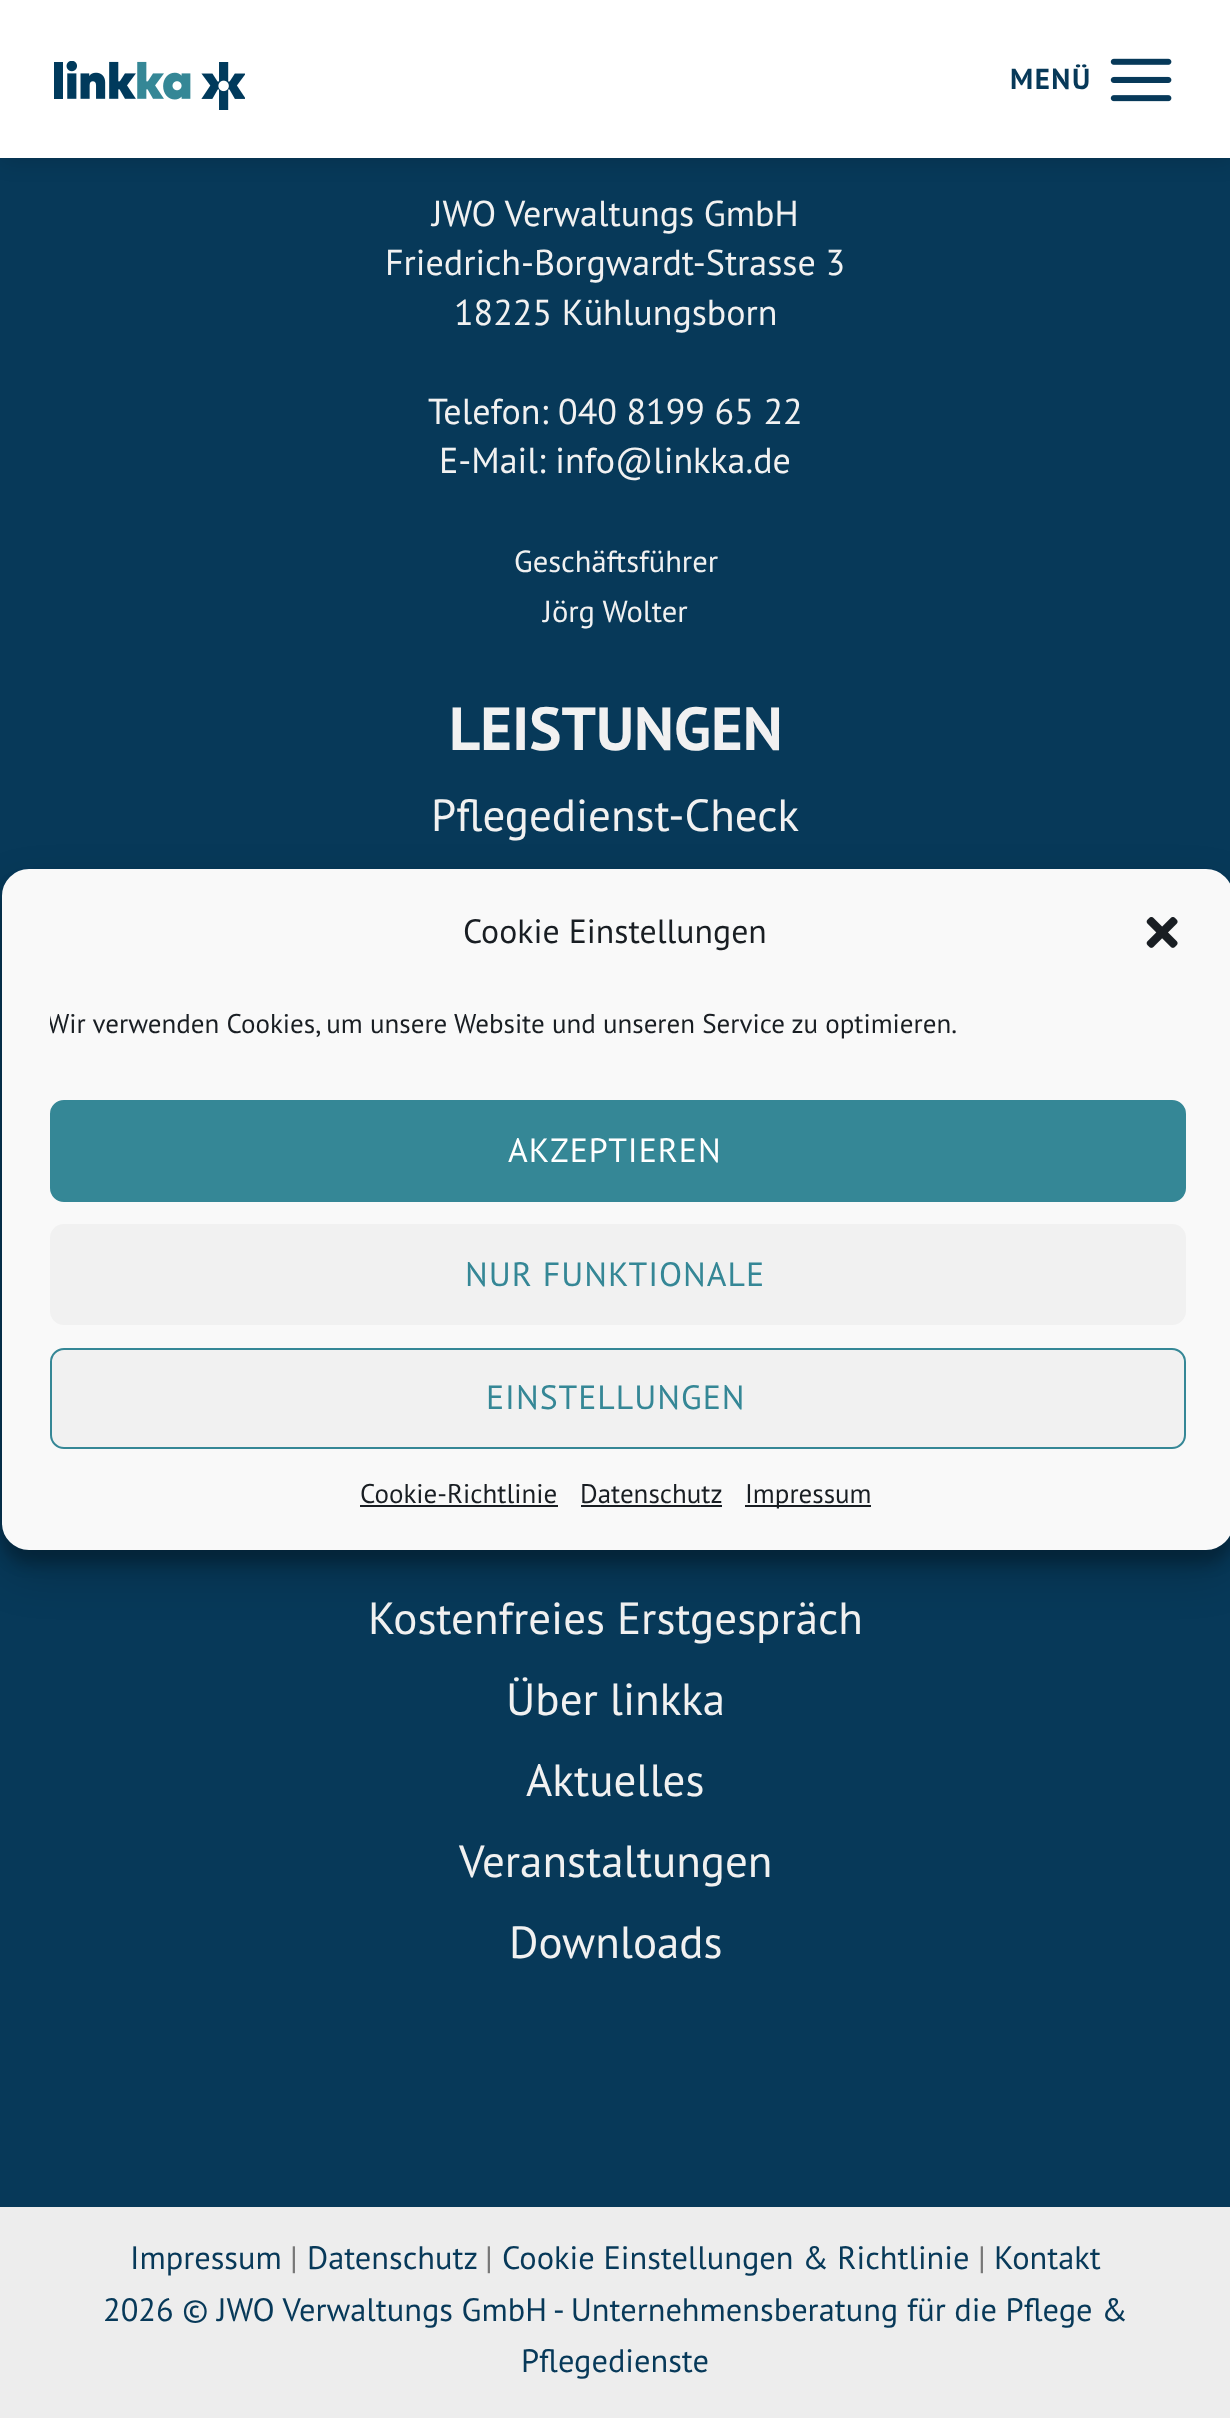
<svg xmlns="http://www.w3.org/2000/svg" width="1230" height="2418">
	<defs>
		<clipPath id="clip1"><path d="M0 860H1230V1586H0ZM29 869H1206C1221 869 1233 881 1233 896V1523C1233 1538 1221 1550 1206 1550H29C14 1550 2 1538 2 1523V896C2 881 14 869 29 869Z" clip-rule="evenodd" /></clipPath>
		<clipPath id="clip2"><rect x="50" y="1004" width="1136" height="51" /></clipPath>
	</defs>
	<rect width="100%" height="100%" fill="#073959" />
	<rect x="2" y="2" width="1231" height="158" fill="#000000" fill-opacity="0.15" filter="blur(11px)" />
	<rect x="0" y="0" width="1230" height="158" fill="#FFFFFF" />
	<image x="54" y="61" width="191" height="49" href="assets/img1.png" />
	<text x="1010" y="89" font-family="PT Sans" font-size="29" font-weight="700" letter-spacing="1.5" fill="#073959">MENÜ</text>
	<image x="1110" y="58" width="62" height="44" href="assets/img2.png" />
	<g font-family="PT Sans" font-size="36" fill="#F1F1F1">
		<text x="432" y="226">JWO Verwaltungs GmbH</text>
		<text x="385" y="275">Friedrich-Borgwardt-Strasse 3</text>
		<text x="454" y="325">18225 Kühlungsborn</text>
		<text x="428" y="424">Telefon: 040 8199 65 22</text>
		<text x="439" y="473">E-Mail: info@linkka.de</text>
	</g>
	<g font-family="PT Sans" font-size="30.5" fill="#F1F1F1">
		<text x="514" y="572">Geschäftsführer</text>
		<text x="543" y="622">Jörg Wolter</text>
	</g>
	<text x="449" y="750" font-family="PT Sans" font-size="60.75" font-weight="700" fill="#F1F1F1">LEISTUNGEN</text>
	<g font-family="PT Sans" font-size="45" fill="#F1F1F1">
		<text x="431" y="831">Pflegedienst-Check</text>
		<text x="368" y="1634">Kostenfreies Erstgespräch</text>
		<text x="506" y="1715">Über linkka</text>
		<text x="526" y="1796">Aktuelles</text>
		<text x="459" y="1877">Veranstaltungen</text>
		<text x="509" y="1958">Downloads</text>
	</g>
	<rect x="0" y="2207" width="1230" height="211" fill="#EDEDED" />
	<text x="130" y="2269" font-family="PT Sans" font-size="32.4" fill="#073959">Impressum</text>
	<text x="290" y="2269" font-family="PT Sans" font-size="32.4" fill="#777777">|</text>
	<text x="307" y="2269" font-family="PT Sans" font-size="32.4" fill="#073959">Datenschutz</text>
	<text x="485" y="2269" font-family="PT Sans" font-size="32.4" fill="#777777">|</text>
	<text x="502" y="2269" font-family="PT Sans" font-size="32.4" fill="#073959">Cookie Einstellungen &amp; Richtlinie</text>
	<text x="978" y="2269" font-family="PT Sans" font-size="32.4" fill="#777777">|</text>
	<g font-family="PT Sans" font-size="32.4" fill="#073959">
		<text x="994" y="2269">Kontakt</text>
		<text x="103" y="2321">2026 © JWO Verwaltungs GmbH - Unternehmensberatung für die Pflege &amp;</text>
		<text x="521" y="2372">Pflegedienste</text>
	</g>
	<g clip-path="url(#clip1)">
		<rect x="2" y="882" width="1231" height="682" rx="27" fill="#000000" fill-opacity="0.23" filter="blur(7px)" />
	</g>
	<rect x="2" y="891" width="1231" height="682" rx="27" fill="#000000" fill-opacity="0.19" filter="blur(22.5px)" />
	<rect x="3" y="870" width="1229" height="679" rx="26" fill="#F9F9F9" stroke="#F9F9F9" stroke-width="2" />
	<text x="463" y="943" font-family="PT Sans" font-size="33.75" fill="#191E23">Cookie Einstellungen</text>
	<image x="1146" y="917" width="32" height="31" href="assets/img3.png" />
	<g clip-path="url(#clip2)">
		<text x="47" y="1033" font-family="PT Sans" font-size="27" fill="#191E23">Wir verwenden Cookies, um unsere Website und unseren Service zu optimieren.</text>
	</g>
	<rect x="51" y="1101" width="1134" height="100" rx="13" fill="#358796" stroke="#358796" stroke-width="2" />
	<text x="508" y="1162" font-family="PT Sans" font-size="33.75" letter-spacing="1" fill="#FFFFFF">AKZEPTIEREN</text>
	<rect x="50" y="1224" width="1136" height="101" rx="14" fill="#F1F1F1" />
	<text x="465" y="1286" font-family="PT Sans" font-size="33.75" letter-spacing="1" fill="#358796">NUR FUNKTIONALE</text>
	<rect x="51" y="1349" width="1134" height="99" rx="13" fill="#F1F1F1" stroke="#358796" stroke-width="2" />
	<text x="486" y="1409" font-family="PT Sans" font-size="33.75" letter-spacing="1" fill="#358796">EINSTELLUNGEN</text>
	<text x="360" y="1503" font-family="PT Sans" font-size="27" fill="#191E23">Cookie-Richtlinie</text>
	<rect x="360" y="1505" width="198" height="2" fill="#191E23" />
	<text x="580" y="1503" font-family="PT Sans" font-size="27" fill="#191E23">Datenschutz</text>
	<rect x="581" y="1505" width="141" height="2" fill="#191E23" />
	<rect x="745" y="1505" width="126" height="2" fill="#191E23" />
	<text x="745" y="1503" font-family="PT Sans" font-size="27" fill="#191E23">Impressum</text>
</svg>
